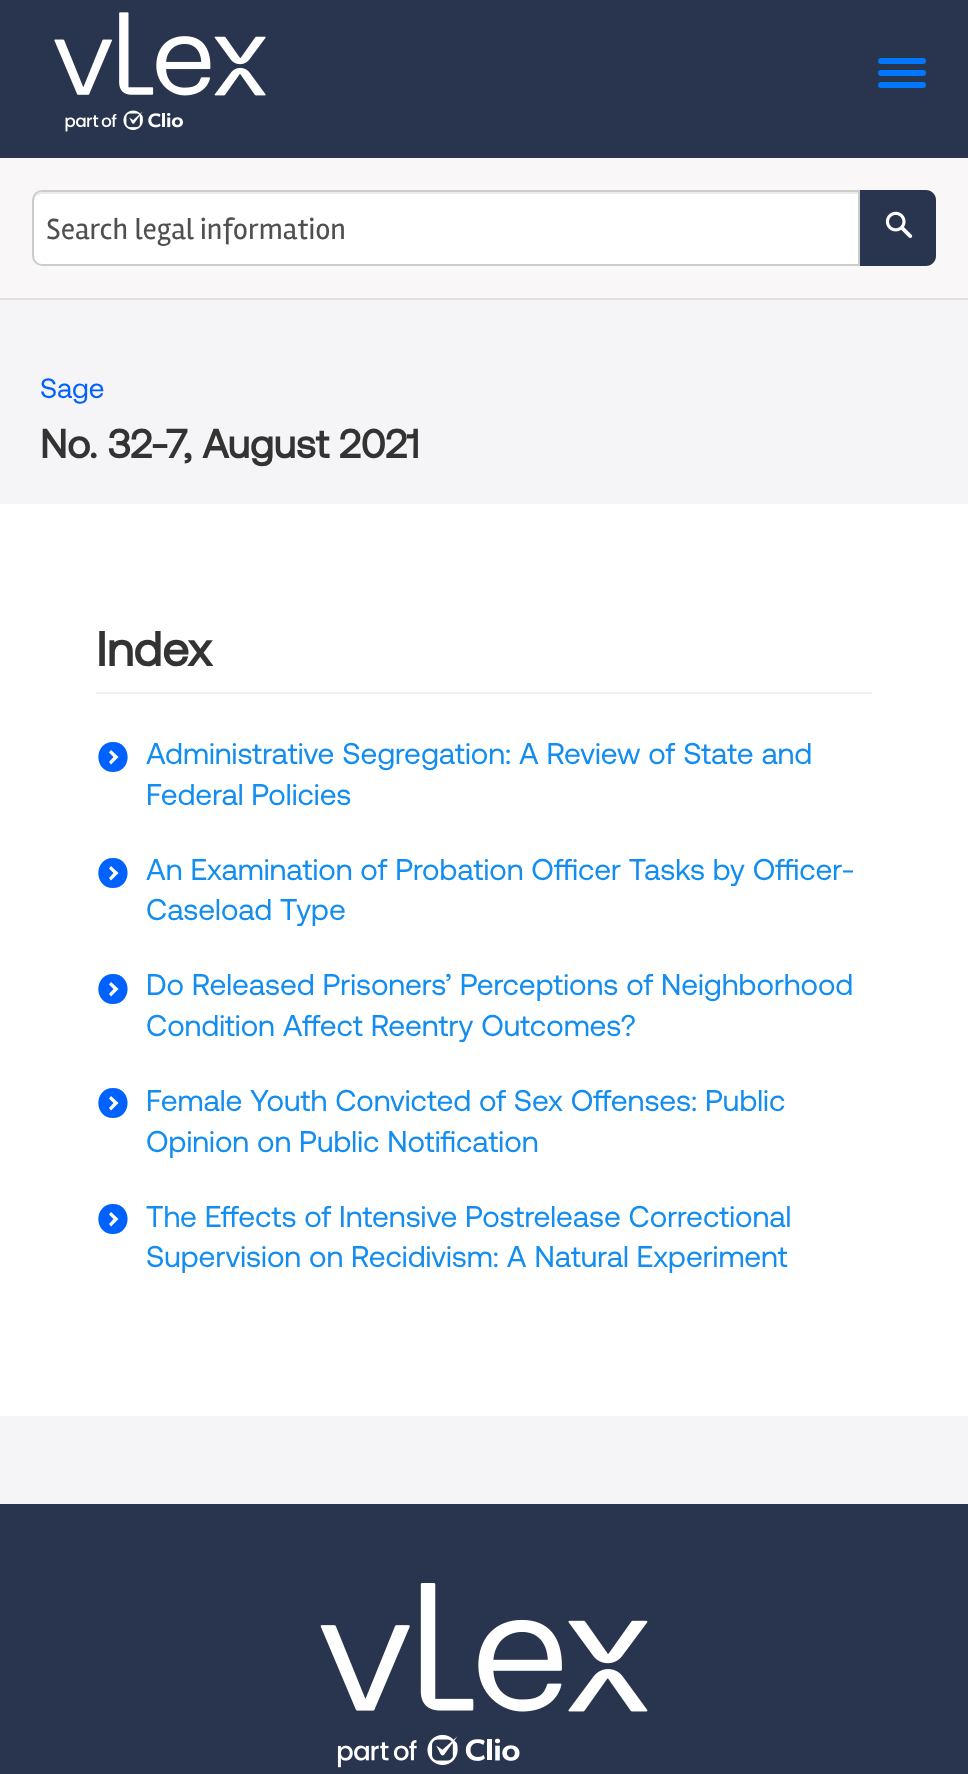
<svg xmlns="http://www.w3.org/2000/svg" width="968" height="1774">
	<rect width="100%" height="100%" fill="#F5F5F7" />
	<rect x="0" y="0" width="968" height="158" fill="#29354E" />
	<image x="54" y="12" width="212" height="120" href="assets/img1.png" />
	<rect x="878" y="70" width="48" height="6" rx="3" fill="#0077FF" />
	<rect x="878" y="58" width="48" height="6" rx="3" fill="#0077FF" />
	<rect x="878" y="82" width="48" height="6" rx="3" fill="#0077FF" />
	<rect x="0" y="158" width="968" height="140" fill="#F9F7F7" />
	<rect x="0" y="298" width="968" height="2" fill="#E1E1E1" />
	<path d="M42 190H860V266H42C36.5 266 32 261.5 32 256V200C32 194.5 36.5 190 42 190Z" fill="#FFFFFF" />
	<path d="M42 194H858V192H42C38 192 34 196 34 200V202C34 198 38 194 42 194Z" fill="#ECECEC" />
	<path d="M42 191H859V265H42C37 265 33 261 33 256V200C33 195 37 191 42 191Z" fill="none" stroke="#CCCCCC" stroke-width="2" />
	<text x="46" y="239" font-family="Rambla" font-size="30" fill="#505050">Search legal information</text>
	<path d="M860 190H926C931.5 190 936 194.5 936 200V256C936 261.5 931.5 266 926 266H860Z" fill="#29354E" />
	<image x="885" y="211" width="28" height="27" href="assets/img2.png" />
	<text x="40" y="398" font-family="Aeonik" font-size="28" fill="#0161FF">Sage</text>
	<text x="40" y="458" font-family="Aeonik" font-size="40" font-weight="700" fill="#333333">No. 32-7, August 2021</text>
	<rect x="0" y="504" width="968" height="912" fill="#FFFFFF" />
	<text x="96" y="666" font-family="Aeonik" font-size="48" font-weight="700" fill="#333333">Index</text>
	<rect x="96" y="692" width="776" height="2" fill="#F0F0ED" />
	<path d="M113 742C132.5 742 132.5 772 113 772C93.5 772 93.5 742 113 742ZM111 764.5L118.5 757L111 750L109 752.5L113.5 757L109 762Z" fill="#0062FE" />
	<g font-family="Aeonik" font-size="30" fill="#138DF0">
		<text x="146" y="764">Administrative Segregation: A Review of State and</text>
		<text x="146" y="805">Federal Policies</text>
	</g>
	<path d="M113 858C132.5 858 132.5 888 113 888C93.5 888 93.5 858 113 858ZM111 880.5L118.5 873L111 866L109 868.5L113.5 873L109 878Z" fill="#0062FE" />
	<g font-family="Aeonik" font-size="30" fill="#138DF0">
		<text x="146" y="880">An Examination of Probation Officer Tasks by Officer-</text>
		<text x="146" y="920">Caseload Type</text>
	</g>
	<path d="M113 974C132.5 974 132.5 1004 113 1004C93.5 1004 93.5 974 113 974ZM111 996.5L118.5 989L111 982L109 984.5L113.5 989L109 994Z" fill="#0062FE" />
	<g font-family="Aeonik" font-size="30" fill="#138DF0">
		<text x="146" y="995">Do Released Prisoners’ Perceptions of Neighborhood</text>
		<text x="146" y="1036">Condition Affect Reentry Outcomes?</text>
	</g>
	<path d="M113 1088C132.5 1088 132.5 1118 113 1118C93.5 1118 93.5 1088 113 1088ZM111 1110.5L118.5 1103L111 1096L109 1098.5L113.5 1103L109 1108Z" fill="#0062FE" />
	<g font-family="Aeonik" font-size="30" fill="#138DF0">
		<text x="146" y="1111">Female Youth Convicted of Sex Offenses: Public</text>
		<text x="146" y="1152">Opinion on Public Notification</text>
	</g>
	<path d="M113 1204C132.5 1204 132.5 1234 113 1234C93.5 1234 93.5 1204 113 1204ZM111 1226.5L118.5 1219L111 1212L109 1214.5L113.5 1219L109 1224Z" fill="#0062FE" />
	<g font-family="Aeonik" font-size="30" fill="#138DF0">
		<text x="146" y="1227">The Effects of Intensive Postrelease Correctional</text>
		<text x="146" y="1267">Supervision on Recidivism: A Natural Experiment</text>
	</g>
	<rect x="0" y="1504" width="968" height="270" fill="#29354E" />
	<image x="320" y="1583" width="328" height="185" href="assets/img3.png" />
</svg>
